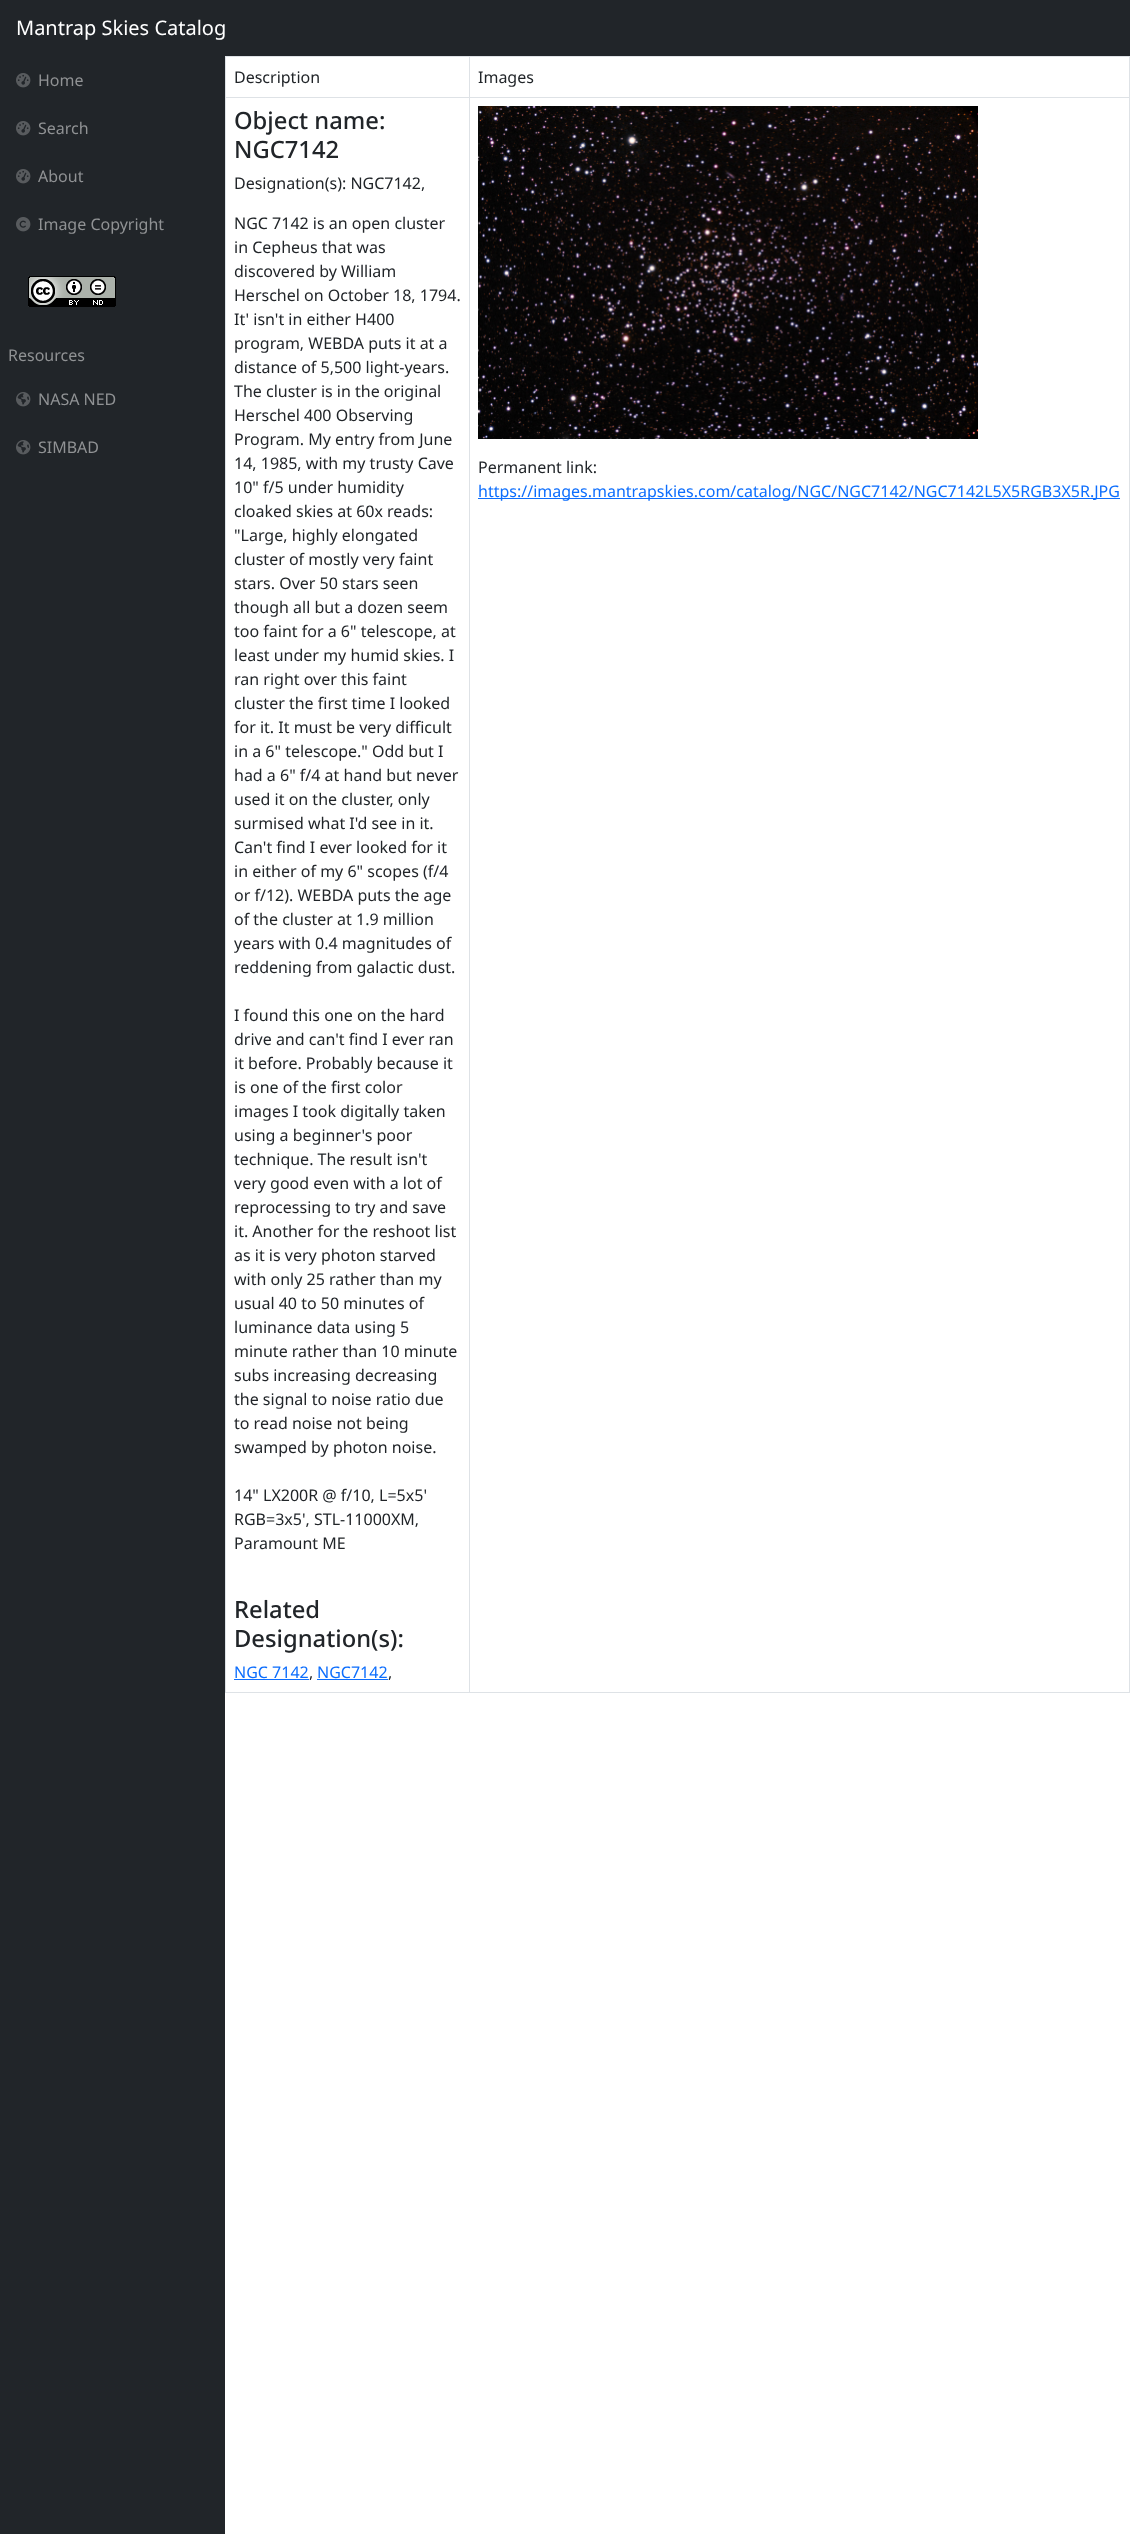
<svg xmlns="http://www.w3.org/2000/svg" width="1130" height="2534">
	<rect width="100%" height="100%" fill="#FFFFFF" />
	<rect x="0" y="0" width="1130" height="56" fill="#212529" />
	<text x="16" y="35" font-family="Noto Sans" font-size="20" fill="#FFFFFF">Mantrap Skies Catalog</text>
	<rect x="0" y="56" width="225" height="2478" fill="#212529" />
	<image x="16" y="73" width="15" height="15" href="assets/img1.png" />
	<text x="38" y="86" font-family="Noto Sans" font-size="16" fill="#909294">Home</text>
	<image x="16" y="121" width="15" height="15" href="assets/img1.png" />
	<text x="38" y="134" font-family="Noto Sans" font-size="16" fill="#909294">Search</text>
	<image x="16" y="169" width="15" height="15" href="assets/img1.png" />
	<text x="38" y="182" font-family="Noto Sans" font-size="16" fill="#909294">About</text>
	<image x="16" y="217" width="15" height="15" href="assets/img2.png" />
	<text x="38" y="230" font-family="Noto Sans" font-size="16" fill="#909294">Image Copyright</text>
	<image x="28" y="276" width="88" height="31" href="assets/img3.png" />
	<text x="8" y="361" font-family="Noto Sans" font-size="16" fill="#909294">Resources</text>
	<image x="16" y="392" width="15" height="15" href="assets/img4.png" />
	<text x="38" y="405" font-family="Noto Sans" font-size="16" fill="#909294">NASA NED</text>
	<image x="16" y="440" width="15" height="15" href="assets/img4.png" />
	<text x="38" y="453" font-family="Noto Sans" font-size="16" fill="#909294">SIMBAD</text>
	<rect x="225" y="56" width="905" height="1" fill="#DEE2E6" />
	<g font-family="Noto Sans" font-size="16" fill="#212529">
		<text x="234" y="83">Description</text>
		<text x="478" y="83">Images</text>
	</g>
	<rect x="225" y="97" width="905" height="1" fill="#DEE2E6" />
	<rect x="225" y="1692" width="905" height="1" fill="#DEE2E6" />
	<rect x="225" y="56" width="1" height="1637" fill="#DEE2E6" />
	<g font-family="Noto Sans" font-size="23.75" font-weight="500" fill="#212529">
		<text x="234" y="129">Object name:</text>
		<text x="234" y="158">NGC7142</text>
	</g>
	<g font-family="Noto Sans" font-size="16" fill="#212529">
		<text x="234" y="189">Designation(s): NGC7142,</text>
		<text x="234" y="229">NGC 7142 is an open cluster</text>
		<text x="234" y="253">in Cepheus that was</text>
		<text x="234" y="277">discovered by William</text>
		<text x="234" y="301">Herschel on October 18, 1794.</text>
		<text x="234" y="325">It' isn't in either H400</text>
		<text x="234" y="349">program, WEBDA puts it at a</text>
		<text x="234" y="373">distance of 5,500 light-years.</text>
		<text x="234" y="397">The cluster is in the original</text>
		<text x="234" y="421">Herschel 400 Observing</text>
		<text x="234" y="445">Program. My entry from June</text>
		<text x="234" y="469">14, 1985, with my trusty Cave</text>
		<text x="234" y="493">10" f/5 under humidity</text>
		<text x="234" y="517">cloaked skies at 60x reads:</text>
		<text x="234" y="541">"Large, highly elongated</text>
		<text x="234" y="565">cluster of mostly very faint</text>
		<text x="234" y="589">stars. Over 50 stars seen</text>
		<text x="234" y="613">though all but a dozen seem</text>
		<text x="234" y="637">too faint for a 6" telescope, at</text>
		<text x="234" y="661">least under my humid skies. I</text>
		<text x="234" y="685">ran right over this faint</text>
		<text x="234" y="709">cluster the first time I looked</text>
		<text x="234" y="733">for it. It must be very difficult</text>
		<text x="234" y="757">in a 6" telescope." Odd but I</text>
		<text x="234" y="781">had a 6" f/4 at hand but never</text>
		<text x="234" y="805">used it on the cluster, only</text>
		<text x="234" y="829">surmised what I'd see in it.</text>
		<text x="234" y="853">Can't find I ever looked for it</text>
		<text x="234" y="877">in either of my 6" scopes (f/4</text>
		<text x="234" y="901">or f/12). WEBDA puts the age</text>
		<text x="234" y="925">of the cluster at 1.9 million</text>
		<text x="234" y="949">years with 0.4 magnitudes of</text>
		<text x="234" y="973">reddening from galactic dust.</text>
		<text x="234" y="1021">I found this one on the hard</text>
		<text x="234" y="1045">drive and can't find I ever ran</text>
		<text x="234" y="1069">it before. Probably because it</text>
		<text x="234" y="1093">is one of the first color</text>
		<text x="234" y="1117">images I took digitally taken</text>
		<text x="234" y="1141">using a beginner's poor</text>
		<text x="234" y="1165">technique. The result isn't</text>
		<text x="234" y="1189">very good even with a lot of</text>
		<text x="234" y="1213">reprocessing to try and save</text>
		<text x="234" y="1237">it. Another for the reshoot list</text>
		<text x="234" y="1261">as it is very photon starved</text>
		<text x="234" y="1285">with only 25 rather than my</text>
		<text x="234" y="1309">usual 40 to 50 minutes of</text>
		<text x="234" y="1333">luminance data using 5</text>
		<text x="234" y="1357">minute rather than 10 minute</text>
		<text x="234" y="1381">subs increasing decreasing</text>
		<text x="234" y="1405">the signal to noise ratio due</text>
		<text x="234" y="1429">to read noise not being</text>
		<text x="234" y="1453">swamped by photon noise.</text>
		<text x="234" y="1501">14" LX200R @ f/10, L=5x5'</text>
		<text x="234" y="1525">RGB=3x5', STL-11000XM,</text>
		<text x="234" y="1549">Paramount ME</text>
	</g>
	<g font-family="Noto Sans" font-size="23.75" font-weight="500" fill="#212529">
		<text x="234" y="1618">Related</text>
		<text x="234" y="1647">Designation(s):</text>
	</g>
	<text x="234" y="1678" font-family="Noto Sans" font-size="16" fill="#0D6EFD">NGC 7142</text>
	<rect x="234" y="1679" width="75" height="1" fill="#0D6EFD" />
	<text x="309" y="1678" font-family="Noto Sans" font-size="16" fill="#212529">,</text>
	<text x="317" y="1678" font-family="Noto Sans" font-size="16" fill="#0D6EFD">NGC7142</text>
	<rect x="317" y="1679" width="71" height="1" fill="#0D6EFD" />
	<text x="388" y="1678" font-family="Noto Sans" font-size="16" fill="#212529">,</text>
	<rect x="1129" y="56" width="1" height="1637" fill="#DEE2E6" />
	<rect x="469" y="56" width="1" height="1637" fill="#DEE2E6" />
	<image x="478" y="106" width="500" height="333" href="assets/img5.png" />
	<text x="478" y="473" font-family="Noto Sans" font-size="16" fill="#212529">Permanent link:</text>
	<rect x="478" y="498" width="642" height="1" fill="#0D6EFD" />
	<text x="478" y="497" font-family="Noto Sans" font-size="16" fill="#0D6EFD">https://images.mantrapskies.com/catalog/NGC/NGC7142/NGC7142L5X5RGB3X5R.JPG</text>
</svg>
